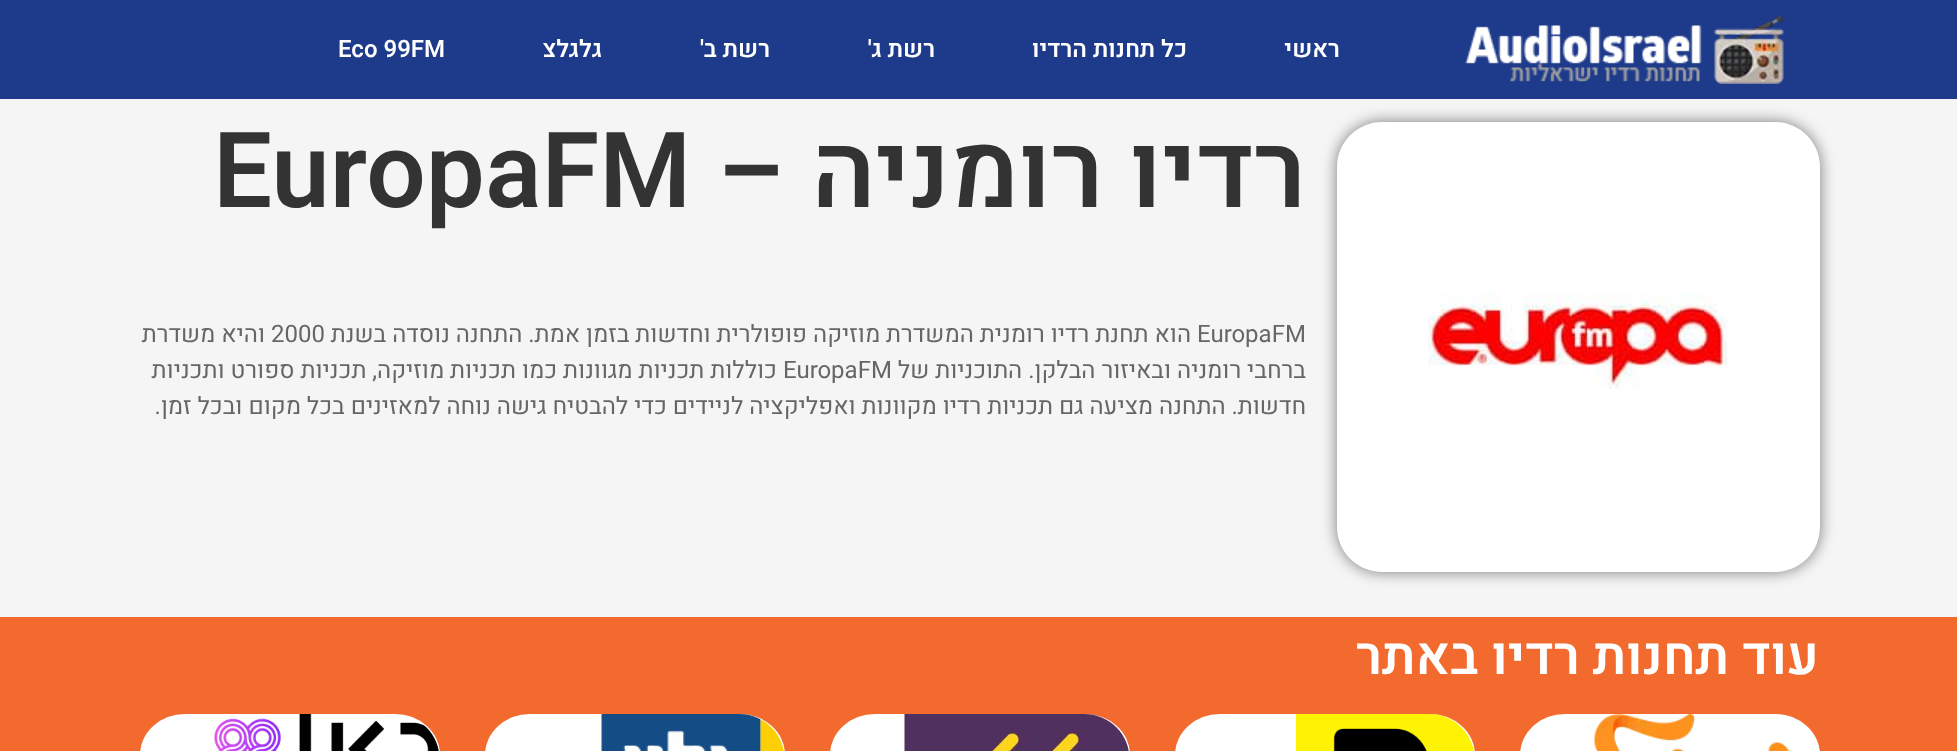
<svg xmlns="http://www.w3.org/2000/svg" width="1957" height="751">
	<rect width="100%" height="100%" fill="#F5F5F5" />
	<rect x="0" y="0" width="1957" height="99" fill="#1E3A8A" />
	<image x="1465" y="15" width="319" height="69" href="assets/img1.png" />
	<g font-family="Heebo" font-size="24" font-weight="600" direction="rtl" fill="#FFFFFF">
		<text x="1340" y="57">ראשי</text>
		<text x="1187" y="57">כל תחנות הרדיו</text>
		<text x="935" y="57">רשת ג'</text>
		<text x="770" y="57">רשת ב'</text>
		<text x="602" y="57">גלגלצ</text>
	</g>
	<text x="338" y="57" font-family="Heebo" font-size="24" font-weight="600" fill="#FFFFFF">Eco 99FM</text>
	<rect x="1337" y="122" width="483" height="450" rx="45" fill="#000000" fill-opacity="0.5" filter="blur(7.5px)" />
	<rect x="1337" y="122" width="483" height="450" rx="45" fill="#FFFFFF" />
	<image x="1428" y="292" width="300" height="97" href="assets/img2.png" />
	<text x="1306" y="207" font-family="Heebo" font-size="105" font-weight="600" direction="rtl" fill="#333333">רדיו רומניה –</text>
	<text x="213" y="207" font-family="Heebo" font-size="105" font-weight="600" fill="#333333">EuropaFM</text>
	<text x="1197" y="342" font-family="Heebo" font-size="24" fill="#666666">EuropaFM</text>
	<text x="1191" y="342" font-family="Heebo" font-size="24" direction="rtl" fill="#666666">הוא תחנת רדיו רומנית המשדרת מוזיקה פופולרית וחדשות בזמן אמת. התחנה נוסדה בשנת</text>
	<text x="271" y="342" font-family="Heebo" font-size="24" fill="#666666">2000</text>
	<g font-family="Heebo" font-size="24" direction="rtl" fill="#666666">
		<text x="265" y="342">והיא משדרת</text>
		<text x="1306" y="378">ברחבי רומניה ובאיזור הבלקן. התוכניות של</text>
	</g>
	<text x="783" y="378" font-family="Heebo" font-size="24" fill="#666666">EuropaFM</text>
	<g font-family="Heebo" font-size="24" direction="rtl" fill="#666666">
		<text x="777" y="378">כוללות תכניות מגוונות כמו תכניות מוזיקה, תכניות ספורט ותכניות</text>
		<text x="1306" y="414">חדשות. התחנה מציעה גם תכניות רדיו מקוונות ואפליקציה לניידים כדי להבטיח גישה נוחה למאזינים בכל מקום ובכל זמן.</text>
	</g>
	<rect x="0" y="617" width="1957" height="134" fill="#F26A2E" />
	<text x="1819" y="674" font-family="Heebo" font-size="52.5" font-weight="600" direction="rtl" fill="#FFFFFF">עוד תחנות רדיו באתר</text>
	<rect x="1520" y="714" width="300" height="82" rx="45" fill="#FFFFFF" />
	<image x="1594" y="714" width="196" height="37" href="assets/img3.png" />
	<rect x="1175" y="714" width="300" height="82" rx="45" fill="#FFFFFF" />
	<image x="1296" y="714" width="178" height="37" href="assets/img4.png" />
	<rect x="830" y="714" width="300" height="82" rx="45" fill="#FFFFFF" />
	<image x="904" y="714" width="225" height="37" href="assets/img5.png" />
	<rect x="485" y="714" width="300" height="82" rx="45" fill="#FFFFFF" />
	<image x="601" y="714" width="183" height="37" href="assets/img6.png" />
	<rect x="140" y="714" width="300" height="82" rx="45" fill="#FFFFFF" />
	<image x="214" y="714" width="225" height="37" href="assets/img7.png" />
</svg>
